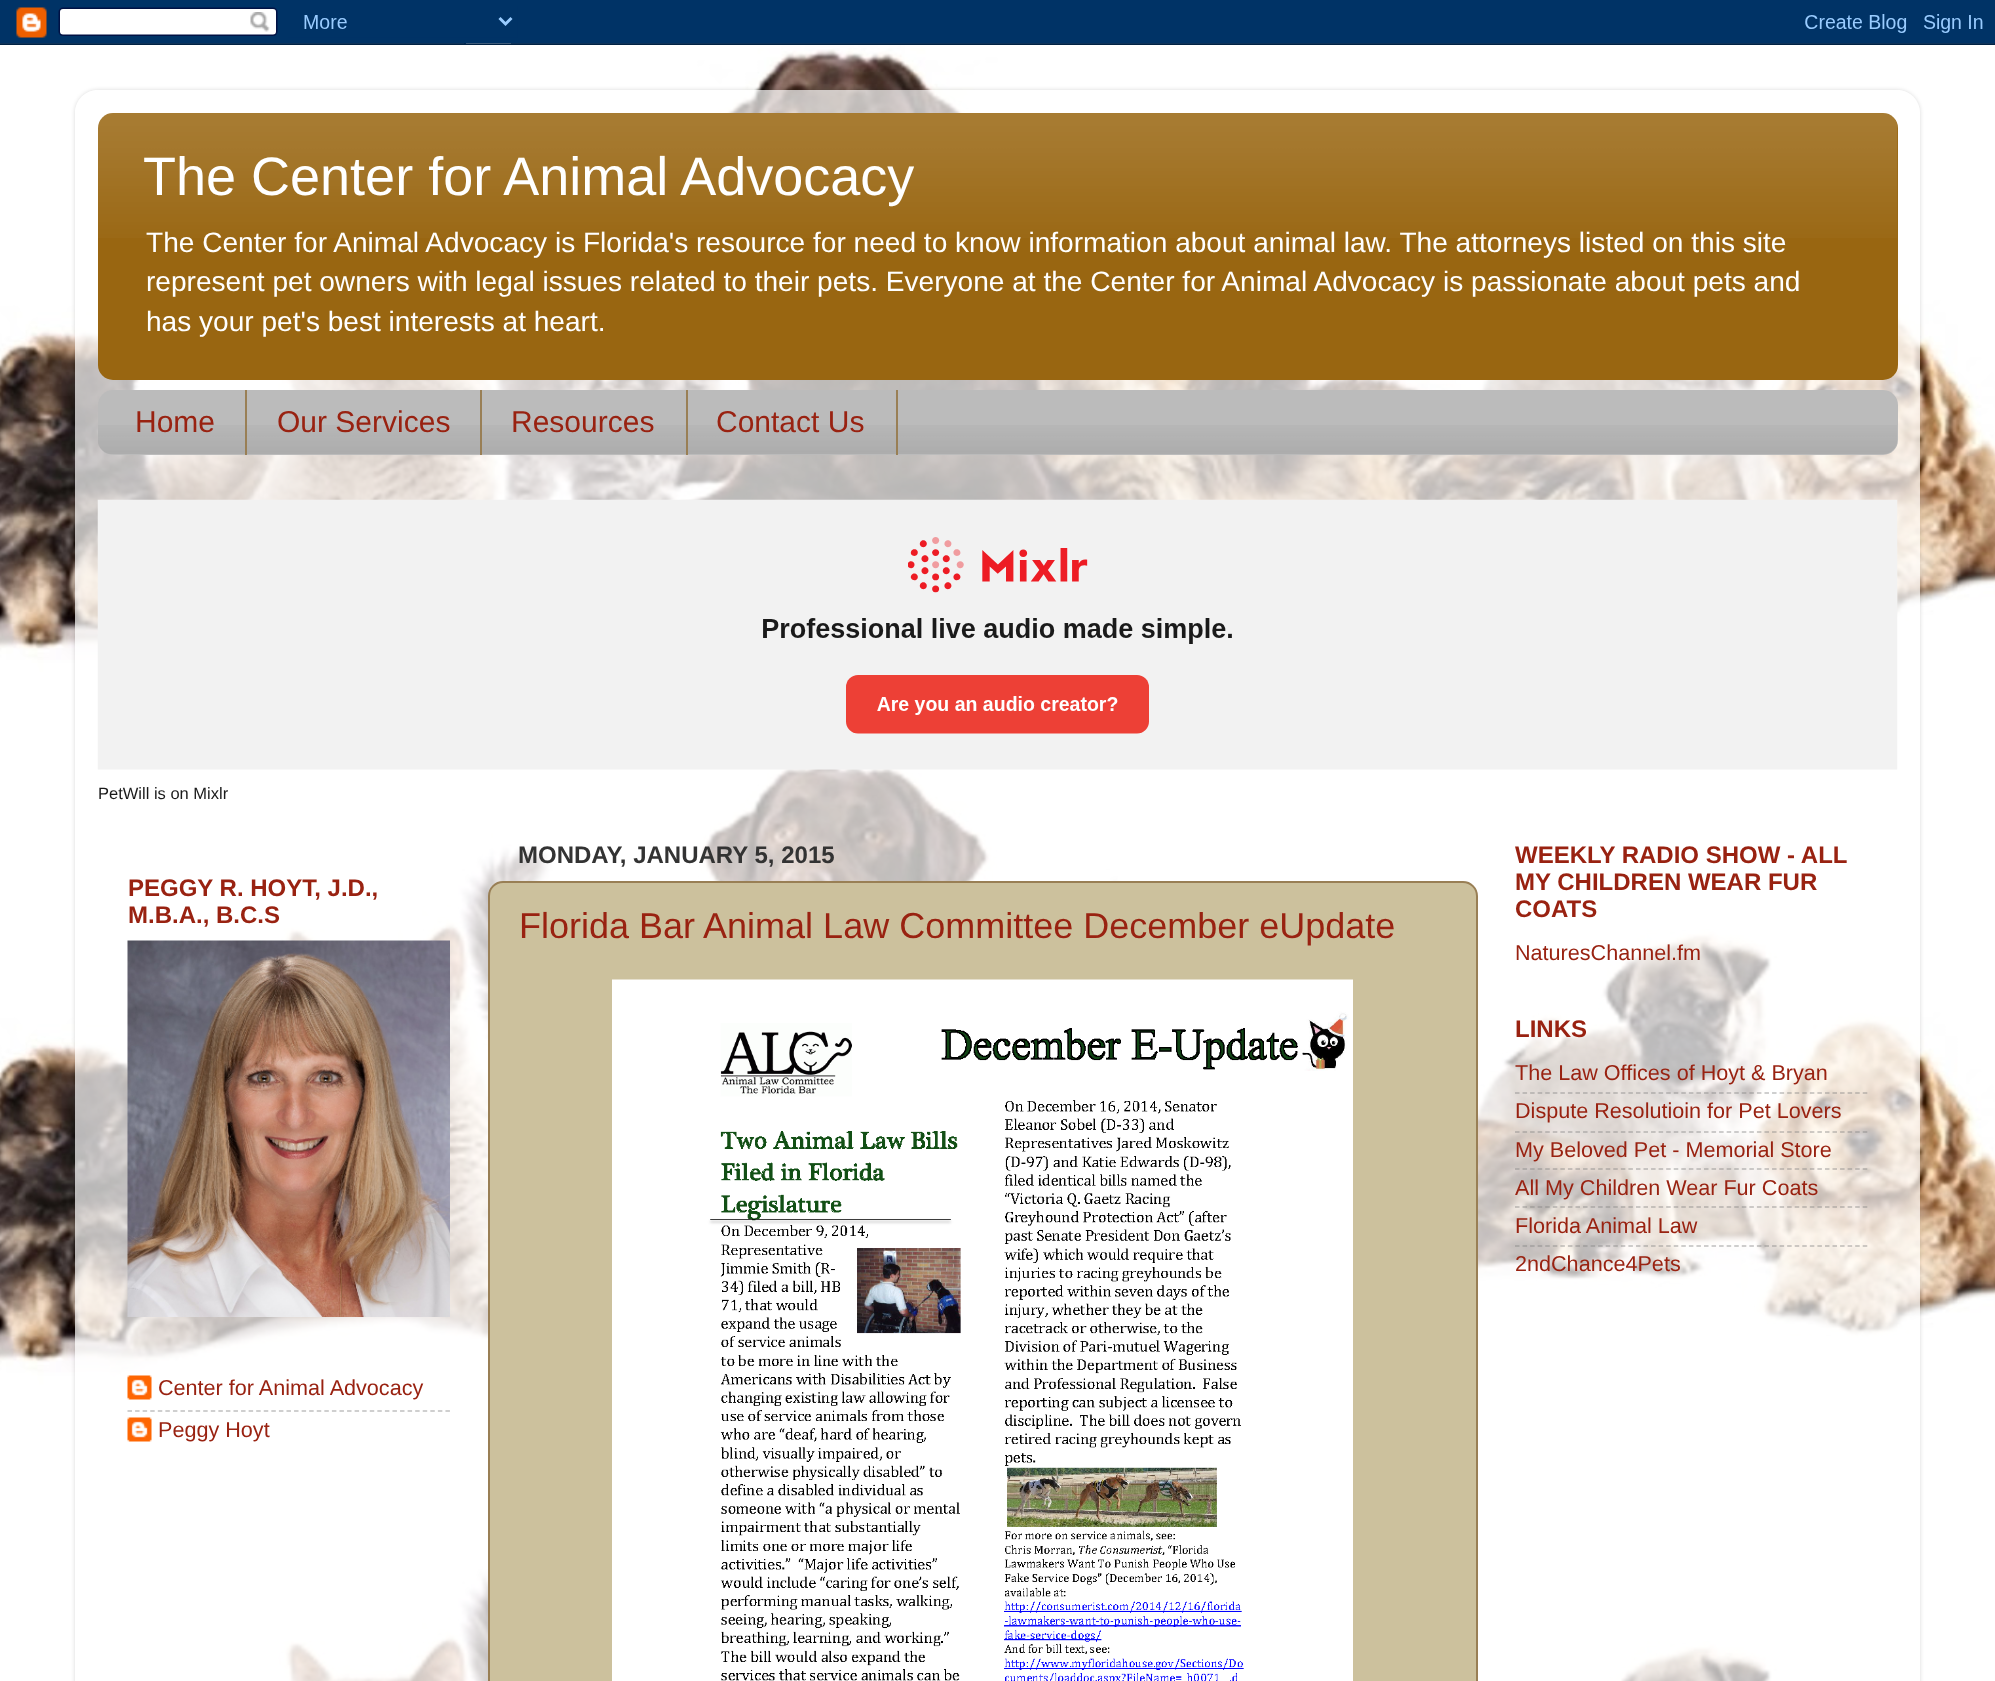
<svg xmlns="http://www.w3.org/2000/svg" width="1995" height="1681">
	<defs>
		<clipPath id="clip1"><path d="M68 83H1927V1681H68ZM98 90H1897C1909.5 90 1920 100.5 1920 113V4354C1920 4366.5 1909.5 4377 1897 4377H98C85.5 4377 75 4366.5 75 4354V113C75 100.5 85.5 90 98 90Z" clip-rule="evenodd" /></clipPath>
	</defs>
	<rect width="100%" height="100%" fill="#FFFFFF" />
	<image x="0" y="43" width="1995" height="1638" href="assets/img1.png" />
	<image x="0" y="0" width="1995" height="45" href="assets/img2.png" />
	<g clip-path="url(#clip1)">
		<rect x="75" y="90" width="1845" height="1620" rx="23" fill="#000000" fill-opacity="0.15" filter="blur(2px)" />
	</g>
	<image x="75" y="90" width="1845" height="1591" href="assets/img3.png" />
	<rect x="98" y="113" width="1800" height="267" rx="15" fill="#996611" />
	<image x="98" y="113" width="1800" height="125" href="assets/img4.png" />
	<text x="143" y="195" font-family="Liberation Sans" font-size="54" fill="#FFFFFF">The Center for Animal Advocacy</text>
	<g font-family="Liberation Sans" font-size="28.08" fill="#FFFFFF">
		<text x="146" y="252">The Center for Animal Advocacy is Florida's resource for need to know information about animal law. The attorneys listed on this site</text>
		<text x="146" y="291">represent pet owners with legal issues related to their pets. Everyone at the Center for Animal Advocacy is passionate about pets and</text>
		<text x="146" y="331">has your pet's best interests at heart.</text>
	</g>
	<rect x="98" y="390" width="1800" height="65" rx="15" fill="#BBBBBB" />
	<image x="98" y="425" width="1799" height="29" href="assets/img5.png" />
	<rect x="245" y="390" width="2" height="65" fill="#997F55" />
	<text x="135" y="432" font-family="Liberation Sans" font-size="30" fill="#992211">Home</text>
	<rect x="480" y="390" width="2" height="65" fill="#997F55" />
	<text x="277" y="432" font-family="Liberation Sans" font-size="30" fill="#992211">Our Services</text>
	<rect x="686" y="390" width="2" height="65" fill="#997F55" />
	<text x="511" y="432" font-family="Liberation Sans" font-size="30" fill="#992211">Resources</text>
	<rect x="896" y="390" width="2" height="65" fill="#997F55" />
	<text x="716" y="432" font-family="Liberation Sans" font-size="30" fill="#992211">Contact Us</text>
	<image x="97" y="499" width="1801" height="271" href="assets/img6.png" />
	<text x="98" y="799" font-family="Liberation Sans" font-size="16.5" fill="#1A1A1A">PetWill is on Mixlr</text>
	<g font-family="Liberation Sans" font-size="24" font-weight="700" fill="#992211">
		<text x="128" y="896">PEGGY R. HOYT, J.D.,</text>
		<text x="128" y="923">M.B.A., B.C.S</text>
	</g>
	<image x="127" y="940" width="323" height="377" href="assets/img7.png" />
	<image x="127" y="1375" width="25" height="25" href="assets/img8.png" />
	<text x="158" y="1395" font-family="Liberation Sans" font-size="21.6" fill="#992211">Center for Animal Advocacy</text>
	<path d="M127.5 1411H450" fill="none" stroke="#C0C0C0" stroke-width="1.5" stroke-dasharray="4.5 3.07" />
	<image x="127" y="1417" width="25" height="25" href="assets/img8.png" />
	<text x="158" y="1437" font-family="Liberation Sans" font-size="21.6" fill="#992211">Peggy Hoyt</text>
	<text x="518" y="863" font-family="Liberation Sans" font-size="24" font-weight="700" fill="#333333">MONDAY, JANUARY 5, 2015</text>
	<rect x="489" y="882" width="988" height="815" rx="14" fill="#CCC19D" stroke="#997F55" stroke-width="2" />
	<text x="519" y="938" font-family="Liberation Sans" font-size="36" fill="#992211">Florida Bar Animal Law Committee December eUpdate</text>
	<image x="612" y="979" width="741" height="702" href="assets/img9.png" />
	<g font-family="Liberation Sans" font-size="24" font-weight="700" fill="#992211">
		<text x="1515" y="863">WEEKLY RADIO SHOW - ALL</text>
		<text x="1515" y="890">MY CHILDREN WEAR FUR</text>
		<text x="1515" y="917">COATS</text>
	</g>
	<text x="1515" y="960" font-family="Liberation Sans" font-size="21.6" fill="#992211">NaturesChannel.fm</text>
	<text x="1515" y="1037" font-family="Liberation Sans" font-size="24" font-weight="700" fill="#992211">LINKS</text>
	<text x="1515" y="1080" font-family="Liberation Sans" font-size="21.6" fill="#992211">The Law Offices of Hoyt &amp; Bryan</text>
	<path d="M1515 1093H1867.5" fill="none" stroke="#808080" stroke-opacity="0.5" stroke-width="1.5" stroke-dasharray="4.5 3.06" />
	<text x="1515" y="1118" font-family="Liberation Sans" font-size="21.6" fill="#992211">Dispute Resolutioin for Pet Lovers</text>
	<path d="M1515 1132H1867.5" fill="none" stroke="#808080" stroke-opacity="0.5" stroke-width="1.5" stroke-dasharray="4.5 3.06" />
	<text x="1515" y="1157" font-family="Liberation Sans" font-size="21.6" fill="#992211">My Beloved Pet - Memorial Store</text>
	<path d="M1515 1169H1867.5" fill="none" stroke="#808080" stroke-opacity="0.5" stroke-width="1.5" stroke-dasharray="4.5 3.06" />
	<text x="1515" y="1195" font-family="Liberation Sans" font-size="21.6" fill="#992211">All My Children Wear Fur Coats</text>
	<path d="M1515 1207H1867.5" fill="none" stroke="#808080" stroke-opacity="0.5" stroke-width="1.5" stroke-dasharray="4.5 3.06" />
	<text x="1515" y="1233" font-family="Liberation Sans" font-size="21.6" fill="#992211">Florida Animal Law</text>
	<path d="M1515 1246H1867.5" fill="none" stroke="#808080" stroke-opacity="0.5" stroke-width="1.5" stroke-dasharray="4.5 3.06" />
	<text x="1515" y="1271" font-family="Liberation Sans" font-size="21.6" fill="#992211">2ndChance4Pets</text>
</svg>
